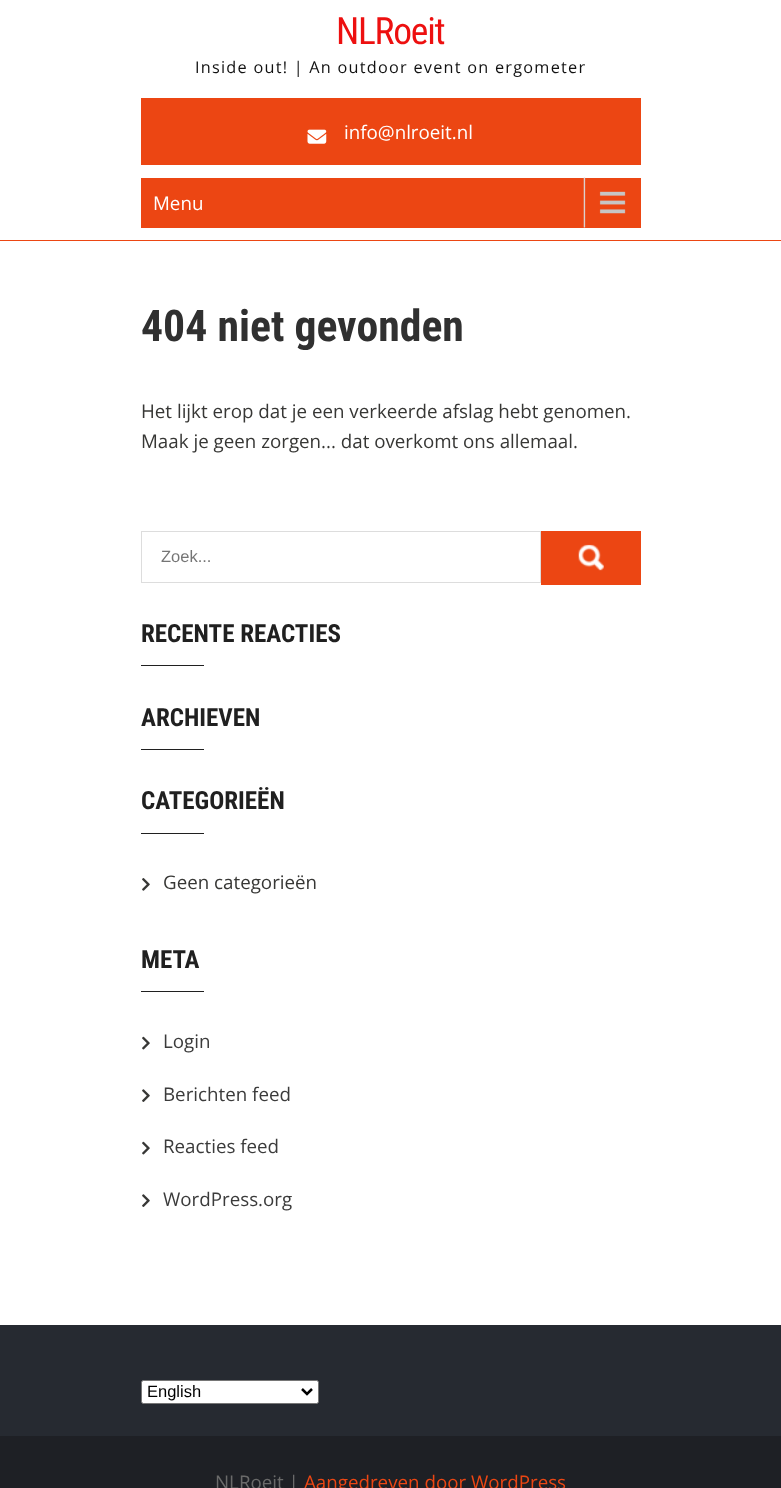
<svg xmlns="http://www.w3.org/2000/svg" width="781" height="1488">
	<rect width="100%" height="100%" fill="#FFFFFF" />
	<rect x="0" y="240" width="781" height="1" fill="#EC4613" />
	<text x="336" y="44" font-family="Roboto Condensed" font-size="37.5" letter-spacing="-1.25" fill="#ED1010">NLRoeit</text>
	<text x="195" y="73" font-family="Open Sans" font-size="16.25" letter-spacing="1.25" fill="#111111">Inside out! | An outdoor event on ergometer</text>
	<rect x="141" y="98" width="500" height="67" fill="#EC4613" />
	<image x="307" y="129" width="20" height="15" href="assets/img1.png" />
	<text x="344" y="139" font-family="Open Sans" font-size="18.75" fill="#FFFFFF">info@nlroeit.nl</text>
	<rect x="141" y="178" width="500" height="50" fill="#EC4613" />
	<image x="583" y="177" width="43" height="51" href="assets/img2.png" />
	<text x="153" y="210" font-family="Open Sans" font-size="18.75" fill="#FFFFFF">Menu</text>
	<text x="141" y="341" font-family="Roboto Condensed" font-size="43.75" font-weight="700" fill="#303030">404 niet gevonden</text>
	<g font-family="Open Sans" font-size="18.75" fill="#373735">
		<text x="141" y="418">Het lijkt erop dat je een verkeerde afslag hebt genomen.</text>
		<text x="141" y="448">Maak je geen zorgen... dat overkomt ons allemaal.</text>
	</g>
	<rect x="141.5" y="531.5" width="399" height="51" fill="none" stroke="#DDDDDD" />
	<text x="161" y="562" font-family="Liberation Sans" font-size="16.5" fill="#757575">Zoek...</text>
	<rect x="541" y="531" width="100" height="54" fill="#EC4613" />
	<image x="578" y="544" width="26" height="27" href="assets/img3.png" />
	<text x="141" y="642" font-family="Roboto Condensed" font-size="25" font-weight="700" fill="#202020">RECENTE REACTIES</text>
	<rect x="141" y="665" width="63" height="1" fill="#202020" />
	<text x="141" y="726" font-family="Roboto Condensed" font-size="25" font-weight="700" fill="#202020">ARCHIEVEN</text>
	<rect x="141" y="749" width="63" height="1" fill="#202020" />
	<text x="141" y="809" font-family="Roboto Condensed" font-size="25" font-weight="700" fill="#202020">CATEGORIEËN</text>
	<rect x="141" y="833" width="63" height="1" fill="#202020" />
	<image x="142" y="878" width="8" height="13" href="assets/img4.png" />
	<text x="163" y="889" font-family="Open Sans" font-size="18.75" fill="#373735">Geen categorieën</text>
	<text x="141" y="968" font-family="Roboto Condensed" font-size="25" font-weight="700" fill="#202020">META</text>
	<rect x="141" y="991" width="63" height="1" fill="#202020" />
	<image x="142" y="1036" width="8" height="14" href="assets/img5.png" />
	<text x="163" y="1048" font-family="Open Sans" font-size="18.75" fill="#3B3B3B">Login</text>
	<image x="142" y="1089" width="8" height="13" href="assets/img6.png" />
	<text x="163" y="1101" font-family="Open Sans" font-size="18.75" fill="#3B3B3B">Berichten feed</text>
	<image x="142" y="1141" width="8" height="14" href="assets/img5.png" />
	<text x="163" y="1153" font-family="Open Sans" font-size="18.75" fill="#3B3B3B">Reacties feed</text>
	<image x="142" y="1194" width="8" height="13" href="assets/img6.png" />
	<text x="163" y="1206" font-family="Open Sans" font-size="18.75" fill="#3B3B3B">WordPress.org</text>
	<rect x="0" y="1325" width="781" height="111" fill="#262A31" />
	<rect x="141.5" y="1380.5" width="177" height="23" rx="2" fill="#FFFFFF" stroke="#767676" />
	<path d="M302 1389L307 1394L312 1389" fill="none" stroke="#000000" stroke-width="2.5" />
	<text x="147" y="1397" font-family="Liberation Sans" font-size="16.5" fill="#000000">English</text>
	<rect x="0" y="1436" width="781" height="52" fill="#1E2025" />
	<text x="215" y="1489" font-family="Open Sans" font-size="18.75" fill="#6A6A6A">NLRoeit |</text>
	<text x="304" y="1489" font-family="Open Sans" font-size="18.75" fill="#EC4613">Aangedreven door WordPress</text>
</svg>
